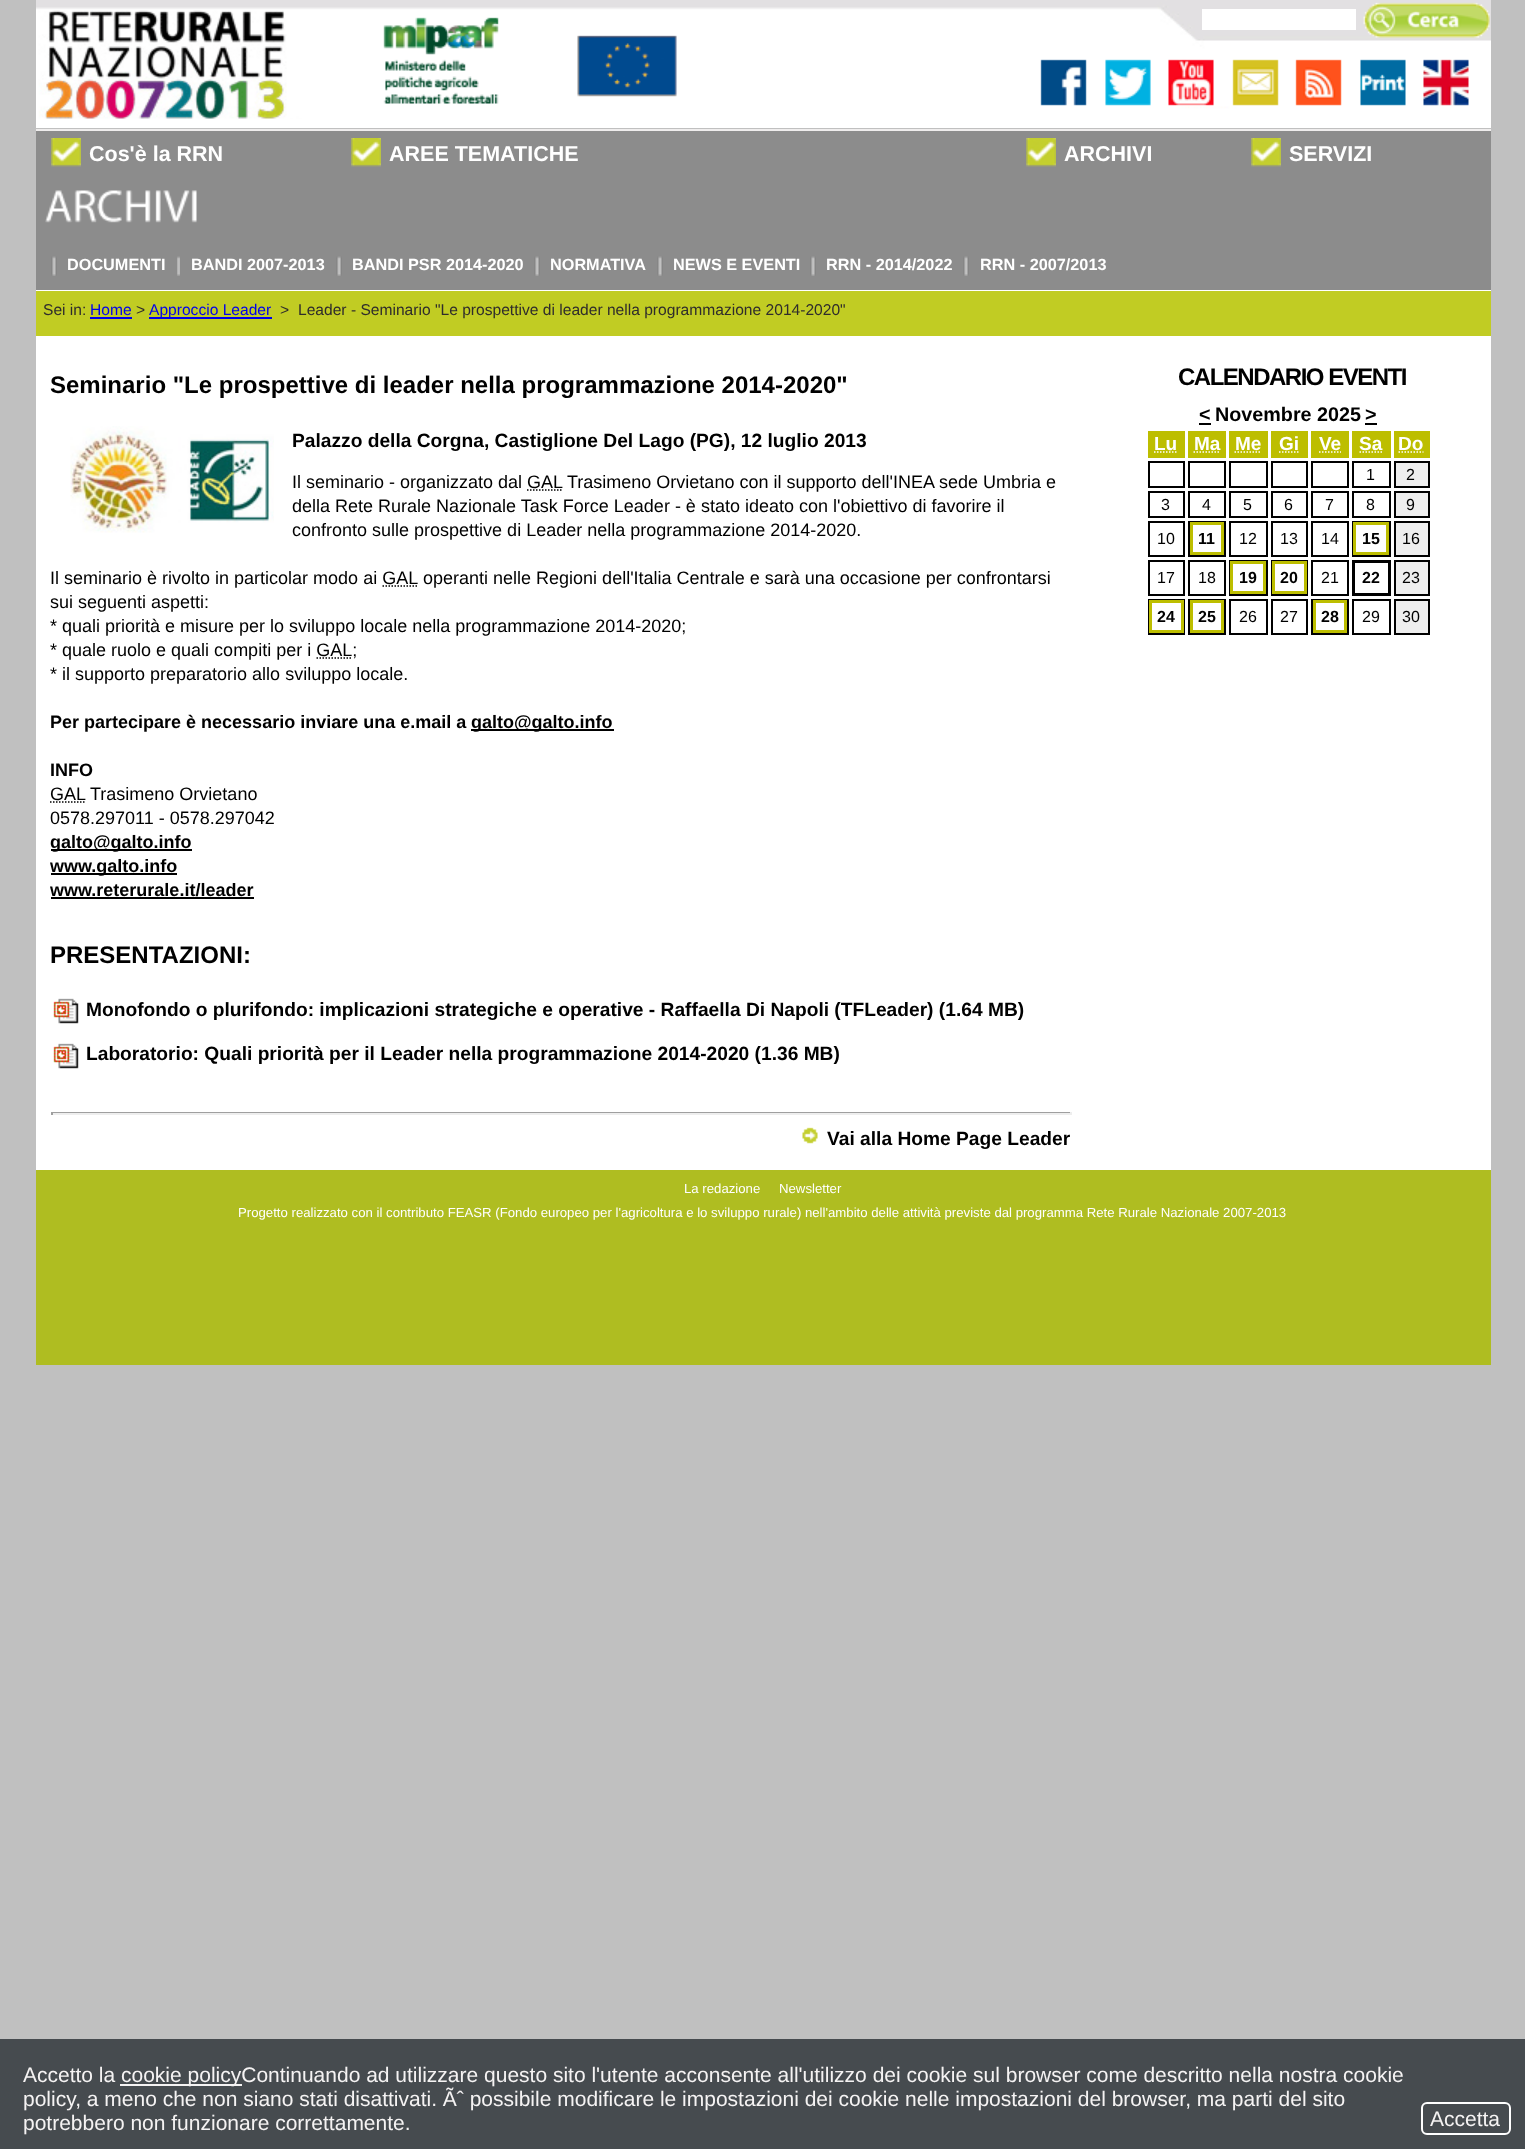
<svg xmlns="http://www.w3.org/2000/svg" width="1525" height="2149">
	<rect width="100%" height="100%" fill="#C0C0C0" />
	<rect x="36" y="119" width="1455" height="9" fill="#FFFFFF" />
	<image x="36" y="0" width="1455" height="119" href="assets/img1.png" />
	<rect x="1202" y="9" width="154" height="21" fill="#FFFFFF" />
	<image x="1363" y="2" width="127" height="36" href="assets/img2.png" />
	<rect x="36" y="129" width="1455" height="2" fill="#EFEDED" />
	<rect x="36" y="131" width="1455" height="159" fill="#8C8C8C" />
	<image x="51" y="138" width="30" height="29" href="assets/img3.png" />
	<text x="89" y="161" font-family="Liberation Sans" font-size="21.5" font-weight="700" fill="#FFFFFF">Cos'è la RRN</text>
	<image x="351" y="138" width="30" height="29" href="assets/img3.png" />
	<text x="389" y="161" font-family="Liberation Sans" font-size="21.5" font-weight="700" fill="#FFFFFF">AREE TEMATICHE</text>
	<image x="1026" y="138" width="30" height="29" href="assets/img4.png" />
	<text x="1064" y="161" font-family="Liberation Sans" font-size="21.5" font-weight="700" fill="#FFFFFF">ARCHIVI</text>
	<image x="1251" y="138" width="30" height="29" href="assets/img3.png" />
	<text x="1289" y="161" font-family="Liberation Sans" font-size="21.5" font-weight="700" fill="#FFFFFF">SERVIZI</text>
	<image x="45" y="190" width="152" height="33" href="assets/img5.png" />
	<image x="51" y="256" width="6" height="20" href="assets/img6.png" />
	<text x="67" y="270" font-family="Liberation Sans" font-size="16.25" font-weight="700" fill="#FFFFFF">DOCUMENTI</text>
	<image x="177" y="256" width="3" height="20" href="assets/img7.png" />
	<text x="191" y="270" font-family="Liberation Sans" font-size="16.25" font-weight="700" fill="#FFFFFF">BANDI 2007-2013</text>
	<image x="336" y="256" width="6" height="20" href="assets/img8.png" />
	<text x="352" y="270" font-family="Liberation Sans" font-size="16.25" font-weight="700" fill="#FFFFFF">BANDI PSR 2014-2020</text>
	<image x="534" y="256" width="6" height="20" href="assets/img6.png" />
	<text x="550" y="270" font-family="Liberation Sans" font-size="16.25" font-weight="700" fill="#FFFFFF">NORMATIVA</text>
	<image x="657" y="256" width="6" height="20" href="assets/img6.png" />
	<text x="673" y="270" font-family="Liberation Sans" font-size="16.25" font-weight="700" fill="#FFFFFF">NEWS E EVENTI</text>
	<image x="810" y="256" width="6" height="20" href="assets/img6.png" />
	<text x="826" y="270" font-family="Liberation Sans" font-size="16.25" font-weight="700" fill="#FFFFFF">RRN - 2014/2022</text>
	<image x="963" y="256" width="6" height="20" href="assets/img6.png" />
	<text x="980" y="270" font-family="Liberation Sans" font-size="16.25" font-weight="700" fill="#FFFFFF">RRN - 2007/2013</text>
	<rect x="36" y="290" width="1455" height="880" fill="#FFFFFF" />
	<rect x="36" y="291" width="1455" height="45" fill="#C1CC23" />
	<text x="43" y="315" font-family="Liberation Sans" font-size="15.6" fill="#2F2C2C">Sei in:</text>
	<text x="90" y="315" font-family="Liberation Sans" font-size="15.6" fill="#0000EE">Home</text>
	<rect x="90" y="317" width="42" height="2" fill="#0000EE" />
	<text x="136" y="315" font-family="Liberation Sans" font-size="15.6" fill="#2F2C2C">&gt;</text>
	<rect x="149" y="317" width="123" height="2" fill="#0000EE" />
	<text x="149" y="315" font-family="Liberation Sans" font-size="15.6" fill="#0000EE">Approccio Leader</text>
	<g font-family="Liberation Sans" font-size="15.6" fill="#2F2C2C">
		<text x="280" y="315">&gt;</text>
		<text x="298" y="315">Leader - Seminario "Le prospettive di leader nella programmazione 2014-2020"</text>
	</g>
	<text x="50" y="393" font-family="Liberation Sans" font-size="24" font-weight="700" fill="#000000">Seminario "Le prospettive di leader nella programmazione 2014-2020"</text>
	<image x="70" y="426" width="204" height="107" href="assets/img9.png" />
	<text x="292" y="447" font-family="Liberation Sans" font-size="19.2" font-weight="700" fill="#000000">Palazzo della Corgna, Castiglione Del Lago (PG), 12 luglio 2013</text>
	<g font-family="Liberation Sans" font-size="18" fill="#000000">
		<text x="292" y="488">Il seminario - organizzato dal GAL</text>
		<text x="567" y="488">Trasimeno Orvietano con il supporto dell'INEA sede Umbria e</text>
	</g>
	<path d="M527 490H562" fill="none" stroke="#000000" stroke-width="1.5" stroke-dasharray="1.5 1.5" />
	<g font-family="Liberation Sans" font-size="18" fill="#000000">
		<text x="292" y="512">della Rete Rurale Nazionale Task Force Leader - è stato ideato con l'obiettivo di favorire il</text>
		<text x="292" y="536">confronto sulle prospettive di Leader nella programmazione 2014-2020.</text>
		<text x="50" y="584">Il seminario è rivolto in particolar modo ai GAL</text>
		<text x="423" y="584">operanti nelle Regioni dell'Italia Centrale e sarà una occasione per confrontarsi</text>
	</g>
	<path d="M382.5 586H418" fill="none" stroke="#000000" stroke-width="1.5" stroke-dasharray="1.5 1.5" />
	<g font-family="Liberation Sans" font-size="18" fill="#000000">
		<text x="50" y="608">sui seguenti aspetti:</text>
		<text x="50" y="632">* quali priorità e misure per lo sviluppo locale nella programmazione 2014-2020;</text>
		<text x="50" y="656">* quale ruolo e quali compiti per i GAL;</text>
	</g>
	<path d="M316.5 658H352.5" fill="none" stroke="#000000" stroke-width="1.5" stroke-dasharray="1.5 1.5" />
	<text x="50" y="680" font-family="Liberation Sans" font-size="18" fill="#000000">* il supporto preparatorio allo sviluppo locale.</text>
	<text x="50" y="728" font-family="Liberation Sans" font-size="18" font-weight="700" fill="#000000">Per partecipare è necessario inviare una e.mail a</text>
	<rect x="471" y="729" width="143" height="2" fill="#000000" />
	<g font-family="Liberation Sans" font-size="18" font-weight="700" fill="#000000">
		<text x="471" y="728">galto@galto.info</text>
		<text x="50" y="776">INFO</text>
	</g>
	<text x="50" y="800" font-family="Liberation Sans" font-size="18" fill="#000000">GAL</text>
	<path d="M50 802H85.5" fill="none" stroke="#000000" stroke-width="1.5" stroke-dasharray="1.5 1.5" />
	<g font-family="Liberation Sans" font-size="18" fill="#000000">
		<text x="90" y="800">Trasimeno Orvietano</text>
		<text x="50" y="824">0578.297011 - 0578.297042</text>
	</g>
	<rect x="51" y="849" width="141" height="2" fill="#000000" />
	<text x="50" y="848" font-family="Liberation Sans" font-size="18" font-weight="700" fill="#000000">galto@galto.info</text>
	<rect x="51" y="873" width="126" height="2" fill="#000000" />
	<g font-family="Liberation Sans" font-size="18" font-weight="700" fill="#000000">
		<text x="50" y="872">www.galto.info</text>
		<text x="50" y="896">www.reterurale.it/leader</text>
	</g>
	<rect x="51" y="897" width="203" height="2" fill="#000000" />
	<text x="50" y="963" font-family="Liberation Sans" font-size="24" font-weight="700" fill="#000000">PRESENTAZIONI:</text>
	<image x="53" y="998" width="26" height="26" href="assets/img10.png" />
	<text x="86" y="1016" font-family="Liberation Sans" font-size="19.2" font-weight="700" fill="#000000">Monofondo o plurifondo: implicazioni strategiche e operative - Raffaella Di Napoli (TFLeader) (1.64 MB)</text>
	<image x="53" y="1043" width="26" height="26" href="assets/img10.png" />
	<text x="86" y="1060" font-family="Liberation Sans" font-size="19.2" font-weight="700" fill="#000000">Laboratorio: Quali priorità per il Leader nella programmazione 2014-2020 (1.36 MB)</text>
	<rect x="51" y="1112" width="1020" height="1" fill="#9F9F9F" />
	<rect x="1070" y="1112" width="2" height="3" fill="#EEEEEE" />
	<rect x="51" y="1113" width="1020" height="2" fill="#EEEEEE" />
	<rect x="51" y="1112" width="2" height="3" fill="#9F9F9F" />
	<image x="802" y="1127" width="16" height="17" href="assets/img11.png" />
	<text x="827" y="1145" font-family="Liberation Sans" font-size="19.2" font-weight="700" fill="#000000">Vai alla Home Page Leader</text>
	<text x="1178" y="385" font-family="Liberation Sans" font-size="24" font-weight="700" letter-spacing="-1.5" fill="#000000">CALENDARIO EVENTI</text>
	<text x="1199" y="421" font-family="Liberation Sans" font-size="19.75" font-weight="700" fill="#000000">&lt;</text>
	<rect x="1199" y="423" width="12" height="2" fill="#000000" />
	<g font-family="Liberation Sans" font-size="19.75" font-weight="700" fill="#000000">
		<text x="1215" y="421">Novembre 2025</text>
		<text x="1365" y="421">&gt;</text>
	</g>
	<rect x="1365" y="423" width="12" height="2" fill="#000000" />
	<rect x="1148" y="431" width="37" height="27" fill="#BDBE00" />
	<text x="1154" y="450" font-family="Liberation Sans" font-size="19" font-weight="700" fill="#FFFFFF">Lu</text>
	<path d="M1154 452H1177.5" fill="none" stroke="#FFFFFF" stroke-width="1.5" stroke-dasharray="1.5 1.5" />
	<rect x="1188" y="431" width="38" height="27" fill="#BDBE00" />
	<text x="1194" y="450" font-family="Liberation Sans" font-size="19" font-weight="700" fill="#FFFFFF">Ma</text>
	<path d="M1193.5 452H1220" fill="none" stroke="#FFFFFF" stroke-width="1.5" stroke-dasharray="1.5 1.5" />
	<rect x="1229" y="431" width="39" height="27" fill="#BDBE00" />
	<text x="1235" y="450" font-family="Liberation Sans" font-size="19" font-weight="700" fill="#FFFFFF">Me</text>
	<path d="M1234.5 452H1261" fill="none" stroke="#FFFFFF" stroke-width="1.5" stroke-dasharray="1.5 1.5" />
	<rect x="1271" y="431" width="37" height="27" fill="#BDBE00" />
	<text x="1279" y="450" font-family="Liberation Sans" font-size="19" font-weight="700" fill="#FFFFFF">Gi</text>
	<path d="M1279 452H1299" fill="none" stroke="#FFFFFF" stroke-width="1.5" stroke-dasharray="1.5 1.5" />
	<rect x="1311" y="431" width="38" height="27" fill="#BDBE00" />
	<text x="1319" y="450" font-family="Liberation Sans" font-size="19" font-weight="700" fill="#FFFFFF">Ve</text>
	<path d="M1319 452H1341" fill="none" stroke="#FFFFFF" stroke-width="1.5" stroke-dasharray="1.5 1.5" />
	<rect x="1352" y="431" width="39" height="27" fill="#BDBE00" />
	<text x="1359" y="450" font-family="Liberation Sans" font-size="19" font-weight="700" fill="#FFFFFF">Sa</text>
	<path d="M1359.5 452H1382.5" fill="none" stroke="#FFFFFF" stroke-width="1.5" stroke-dasharray="1.5 1.5" />
	<rect x="1394" y="431" width="36" height="27" fill="#BDBE00" />
	<text x="1398" y="450" font-family="Liberation Sans" font-size="19" font-weight="700" fill="#FFFFFF">Do</text>
	<path d="M1398.5 452H1423.5" fill="none" stroke="#FFFFFF" stroke-width="1.5" stroke-dasharray="1.5 1.5" />
	<rect x="1149" y="462" width="35" height="25" fill="none" stroke="#000000" stroke-width="2" />
	<rect x="1189" y="462" width="36" height="25" fill="none" stroke="#000000" stroke-width="2" />
	<rect x="1230" y="462" width="37" height="25" fill="none" stroke="#000000" stroke-width="2" />
	<rect x="1272" y="462" width="35" height="25" fill="none" stroke="#000000" stroke-width="2" />
	<rect x="1312" y="462" width="36" height="25" fill="none" stroke="#000000" stroke-width="2" />
	<rect x="1353" y="462" width="37" height="25" fill="none" stroke="#000000" stroke-width="2" />
	<text x="1366" y="480" font-family="Liberation Sans" font-size="16" fill="#000000">1</text>
	<rect x="1395" y="462" width="34" height="25" fill="#EEEEEE" stroke="#000000" stroke-width="2" />
	<text x="1406" y="480" font-family="Liberation Sans" font-size="16" fill="#000000">2</text>
	<rect x="1149" y="492" width="35" height="25" fill="none" stroke="#000000" stroke-width="2" />
	<text x="1161" y="510" font-family="Liberation Sans" font-size="16" fill="#000000">3</text>
	<rect x="1189" y="492" width="36" height="25" fill="none" stroke="#000000" stroke-width="2" />
	<text x="1202" y="510" font-family="Liberation Sans" font-size="16" fill="#000000">4</text>
	<rect x="1230" y="492" width="37" height="25" fill="none" stroke="#000000" stroke-width="2" />
	<text x="1243" y="510" font-family="Liberation Sans" font-size="16" fill="#000000">5</text>
	<rect x="1272" y="492" width="35" height="25" fill="none" stroke="#000000" stroke-width="2" />
	<text x="1284" y="510" font-family="Liberation Sans" font-size="16" fill="#000000">6</text>
	<rect x="1312" y="492" width="36" height="25" fill="none" stroke="#000000" stroke-width="2" />
	<text x="1325" y="510" font-family="Liberation Sans" font-size="16" fill="#000000">7</text>
	<rect x="1353" y="492" width="37" height="25" fill="none" stroke="#000000" stroke-width="2" />
	<text x="1366" y="510" font-family="Liberation Sans" font-size="16" fill="#000000">8</text>
	<rect x="1395" y="492" width="34" height="25" fill="#EEEEEE" stroke="#000000" stroke-width="2" />
	<text x="1406" y="510" font-family="Liberation Sans" font-size="16" fill="#000000">9</text>
	<rect x="1149" y="522" width="35" height="34" fill="none" stroke="#000000" stroke-width="2" />
	<text x="1157" y="544" font-family="Liberation Sans" font-size="16" fill="#000000">10</text>
	<rect x="1189" y="522" width="36" height="34" fill="none" stroke="#000000" stroke-width="2" />
	<rect x="1191.5" y="523.5" width="31" height="30" fill="none" stroke="#BDBE00" stroke-width="3" />
	<text x="1198" y="544" font-family="Liberation Sans" font-size="16" font-weight="700" fill="#000000">11</text>
	<rect x="1230" y="522" width="37" height="34" fill="none" stroke="#000000" stroke-width="2" />
	<text x="1239" y="544" font-family="Liberation Sans" font-size="16" fill="#000000">12</text>
	<rect x="1272" y="522" width="35" height="34" fill="none" stroke="#000000" stroke-width="2" />
	<text x="1280" y="544" font-family="Liberation Sans" font-size="16" fill="#000000">13</text>
	<rect x="1312" y="522" width="36" height="34" fill="none" stroke="#000000" stroke-width="2" />
	<text x="1321" y="544" font-family="Liberation Sans" font-size="16" fill="#000000">14</text>
	<rect x="1353" y="522" width="37" height="34" fill="none" stroke="#000000" stroke-width="2" />
	<rect x="1354.5" y="523.5" width="33" height="30" fill="none" stroke="#BDBE00" stroke-width="3" />
	<text x="1362" y="544" font-family="Liberation Sans" font-size="16" font-weight="700" fill="#000000">15</text>
	<rect x="1395" y="522" width="34" height="34" fill="#EEEEEE" stroke="#000000" stroke-width="2" />
	<text x="1402" y="544" font-family="Liberation Sans" font-size="16" fill="#000000">16</text>
	<rect x="1149" y="561" width="35" height="34" fill="none" stroke="#000000" stroke-width="2" />
	<text x="1157" y="583" font-family="Liberation Sans" font-size="16" fill="#000000">17</text>
	<rect x="1189" y="561" width="36" height="34" fill="none" stroke="#000000" stroke-width="2" />
	<text x="1198" y="583" font-family="Liberation Sans" font-size="16" fill="#000000">18</text>
	<rect x="1230" y="561" width="37" height="34" fill="none" stroke="#000000" stroke-width="2" />
	<rect x="1231.5" y="562.5" width="33" height="30" fill="none" stroke="#BDBE00" stroke-width="3" />
	<text x="1239" y="583" font-family="Liberation Sans" font-size="16" font-weight="700" fill="#000000">19</text>
	<rect x="1272" y="561" width="35" height="34" fill="none" stroke="#000000" stroke-width="2" />
	<rect x="1273.5" y="562.5" width="32" height="30" fill="none" stroke="#BDBE00" stroke-width="3" />
	<text x="1280" y="583" font-family="Liberation Sans" font-size="16" font-weight="700" fill="#000000">20</text>
	<rect x="1312" y="561" width="36" height="34" fill="none" stroke="#000000" stroke-width="2" />
	<text x="1321" y="583" font-family="Liberation Sans" font-size="16" fill="#000000">21</text>
	<rect x="1353.5" y="561.5" width="36" height="33" fill="none" stroke="#000000" stroke-width="3" />
	<text x="1362" y="583" font-family="Liberation Sans" font-size="16" font-weight="700" fill="#000000">22</text>
	<rect x="1395" y="561" width="34" height="34" fill="#EEEEEE" stroke="#000000" stroke-width="2" />
	<text x="1402" y="583" font-family="Liberation Sans" font-size="16" fill="#000000">23</text>
	<rect x="1149" y="600" width="35" height="34" fill="none" stroke="#000000" stroke-width="2" />
	<rect x="1150.5" y="601.5" width="32" height="30" fill="none" stroke="#BDBE00" stroke-width="3" />
	<text x="1157" y="622" font-family="Liberation Sans" font-size="16" font-weight="700" fill="#000000">24</text>
	<rect x="1189" y="600" width="36" height="34" fill="none" stroke="#000000" stroke-width="2" />
	<rect x="1191.5" y="601.5" width="31" height="30" fill="none" stroke="#BDBE00" stroke-width="3" />
	<text x="1198" y="622" font-family="Liberation Sans" font-size="16" font-weight="700" fill="#000000">25</text>
	<rect x="1230" y="600" width="37" height="34" fill="none" stroke="#000000" stroke-width="2" />
	<text x="1239" y="622" font-family="Liberation Sans" font-size="16" fill="#000000">26</text>
	<rect x="1272" y="600" width="35" height="34" fill="none" stroke="#000000" stroke-width="2" />
	<text x="1280" y="622" font-family="Liberation Sans" font-size="16" fill="#000000">27</text>
	<rect x="1312" y="600" width="36" height="34" fill="none" stroke="#000000" stroke-width="2" />
	<rect x="1314.5" y="601.5" width="31" height="30" fill="none" stroke="#BDBE00" stroke-width="3" />
	<text x="1321" y="622" font-family="Liberation Sans" font-size="16" font-weight="700" fill="#000000">28</text>
	<rect x="1353" y="600" width="37" height="34" fill="none" stroke="#000000" stroke-width="2" />
	<text x="1362" y="622" font-family="Liberation Sans" font-size="16" fill="#000000">29</text>
	<rect x="1395" y="600" width="34" height="34" fill="#EEEEEE" stroke="#000000" stroke-width="2" />
	<text x="1402" y="622" font-family="Liberation Sans" font-size="16" fill="#000000">30</text>
	<rect x="36" y="1170" width="1455" height="195" fill="#AFBD21" />
	<g font-family="Liberation Sans" font-size="13.2" fill="#FFFFFF">
		<text x="684" y="1193">La redazione</text>
		<text x="779" y="1193">Newsletter</text>
		<text x="238" y="1217">Progetto realizzato con il contributo FEASR (Fondo europeo per l'agricoltura e lo sviluppo rurale) nell'ambito delle attività previste dal programma Rete Rurale Nazionale 2007-2013</text>
	</g>
	<rect x="0" y="2039" width="1525" height="110" fill="#464B4F" />
	<text x="23" y="2082" font-family="Liberation Sans" font-size="21" fill="#F5F3F3">Accetto la</text>
	<rect x="120" y="2084" width="122" height="2" fill="#F5F3F3" />
	<g font-family="Liberation Sans" font-size="21" fill="#F5F3F3">
		<text x="121" y="2082">cookie policyContinuando ad utilizzare questo sito l'utente acconsente all'utilizzo dei cookie sul browser come descritto nella nostra cookie</text>
		<text x="23" y="2106">policy, a meno che non siano stati disattivati. Ãˆ possibile modificare le impostazioni dei cookie nelle impostazioni del browser, ma parti del sito</text>
		<text x="23" y="2130">potrebbero non funzionare correttamente.</text>
	</g>
	<rect x="1422" y="2103" width="88" height="31" rx="5" fill="none" stroke="#FFFFFF" stroke-width="2" />
	<text x="1430" y="2126" font-family="Liberation Sans" font-size="21" fill="#F5F3F3">Accetta</text>
</svg>
